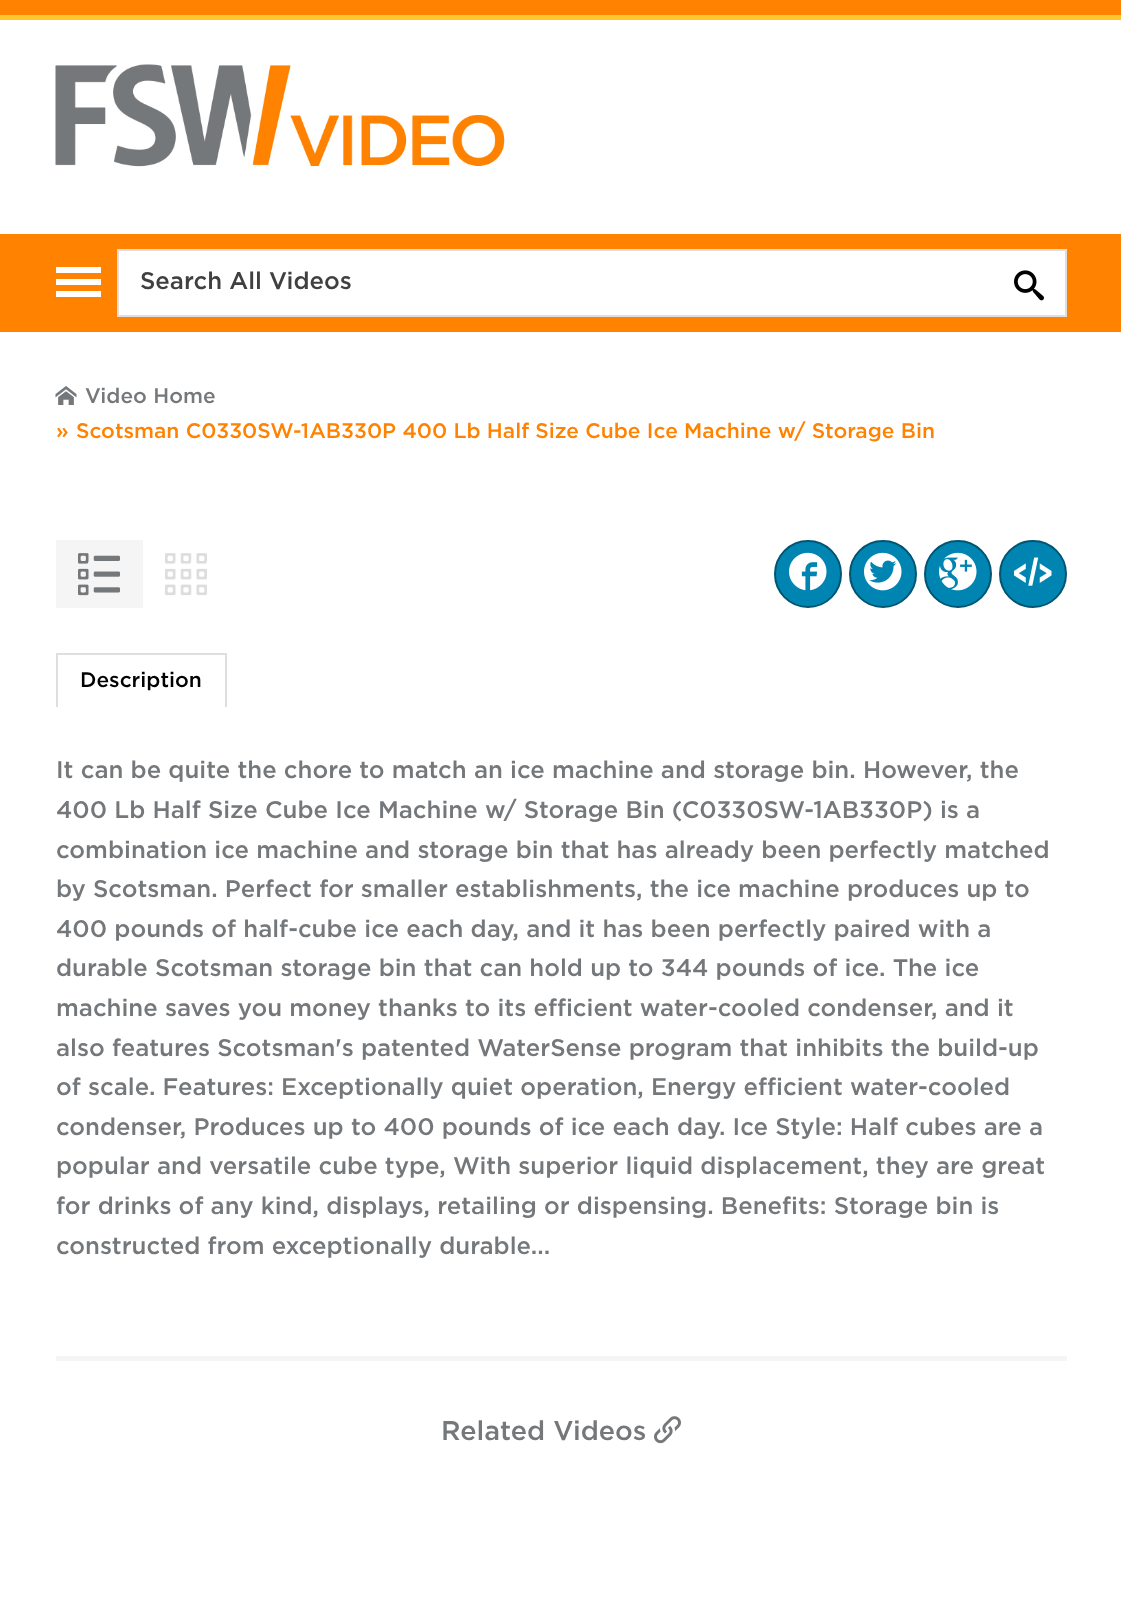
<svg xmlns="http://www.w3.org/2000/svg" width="1121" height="1607">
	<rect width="100%" height="100%" fill="#FFFFFF" />
	<rect x="0" y="0" width="1121" height="15" fill="#FF8200" />
	<rect x="0" y="15" width="1121" height="5" fill="#FFC72C" />
	<image x="55" y="64" width="450" height="103" href="assets/img1.png" />
	<rect x="0" y="234" width="1121" height="98" fill="#FF8200" />
	<rect x="56" y="267" width="45" height="6" fill="#FFFFFF" />
	<rect x="56" y="291" width="45" height="6" fill="#FFFFFF" />
	<rect x="56" y="279" width="45" height="6" fill="#FFFFFF" />
	<rect x="118" y="250" width="948" height="66" fill="#FFFFFF" stroke="#DFDFDF" stroke-width="2" />
	<text x="140" y="289" font-family="Gotham" font-size="24" font-weight="500" fill="#404040">Search All Videos</text>
	<image x="1014" y="270" width="30" height="31" href="assets/img2.png" />
	<image x="55" y="386" width="22" height="19" href="assets/img3.png" />
	<text x="85" y="403" font-family="Gotham" font-size="21" font-weight="500" fill="#75787B">Video Home</text>
	<g font-family="Gotham" font-size="21" font-weight="500" fill="#FF8200">
		<text x="56" y="438">»</text>
		<text x="76" y="438">Scotsman C0330SW-1AB330P 400 Lb Half Size Cube Ice Machine w/ Storage Bin</text>
	</g>
	<rect x="56" y="540" width="87" height="68" fill="#F5F5F5" />
	<image x="78" y="553" width="42" height="43" href="assets/img4.png" />
	<image x="165" y="553" width="42" height="43" href="assets/img5.png" />
	<circle cx="808" cy="574" r="33" fill="#0085B2" stroke="#005572" stroke-width="2" />
	<image x="789" y="552" width="38" height="39" href="assets/img6.png" />
	<circle cx="883" cy="574" r="33" fill="#0085B2" stroke="#005572" stroke-width="2" />
	<image x="864" y="552" width="38" height="39" href="assets/img7.png" />
	<circle cx="958" cy="574" r="33" fill="#0085B2" stroke="#005572" stroke-width="2" />
	<image x="939" y="552" width="38" height="39" href="assets/img8.png" />
	<circle cx="1033" cy="574" r="33" fill="#0085B2" stroke="#005572" stroke-width="2" />
	<image x="1014" y="557" width="38" height="29" href="assets/img9.png" />
	<rect x="56" y="653" width="171" height="2" fill="#DFDFDF" />
	<rect x="225" y="653" width="2" height="54" fill="#DFDFDF" />
	<rect x="56" y="653" width="2" height="54" fill="#DFDFDF" />
	<text x="80" y="687" font-family="Gotham" font-size="21" font-weight="500" fill="#000000">Description</text>
	<g font-family="Gotham" font-size="24" font-weight="500" fill="#75787B">
		<text x="56" y="778">It can be quite the chore to match an ice machine and storage bin. However, the</text>
		<text x="56" y="818">400 Lb Half Size Cube Ice Machine w/ Storage Bin (C0330SW-1AB330P) is a</text>
		<text x="56" y="858">combination ice machine and storage bin that has already been perfectly matched</text>
		<text x="56" y="897">by Scotsman. Perfect for smaller establishments, the ice machine produces up to</text>
		<text x="56" y="937">400 pounds of half-cube ice each day, and it has been perfectly paired with a</text>
		<text x="56" y="976">durable Scotsman storage bin that can hold up to 344 pounds of ice. The ice</text>
		<text x="56" y="1016">machine saves you money thanks to its efficient water-cooled condenser, and it</text>
		<text x="56" y="1056">also features Scotsman's patented WaterSense program that inhibits the build-up</text>
		<text x="56" y="1095">of scale. Features: Exceptionally quiet operation, Energy efficient water-cooled</text>
		<text x="56" y="1135">condenser, Produces up to 400 pounds of ice each day. Ice Style: Half cubes are a</text>
		<text x="56" y="1174">popular and versatile cube type, With superior liquid displacement, they are great</text>
		<text x="56" y="1214">for drinks of any kind, displays, retailing or dispensing. Benefits: Storage bin is</text>
		<text x="56" y="1254">constructed from exceptionally durable...</text>
	</g>
	<rect x="56" y="1356" width="1011" height="5" fill="#F5F5F5" />
	<text x="441" y="1440" font-family="Gotham" font-size="27" font-weight="500" fill="#75787B">Related Videos</text>
	<image x="654" y="1416" width="27" height="28" href="assets/img10.png" />
</svg>
